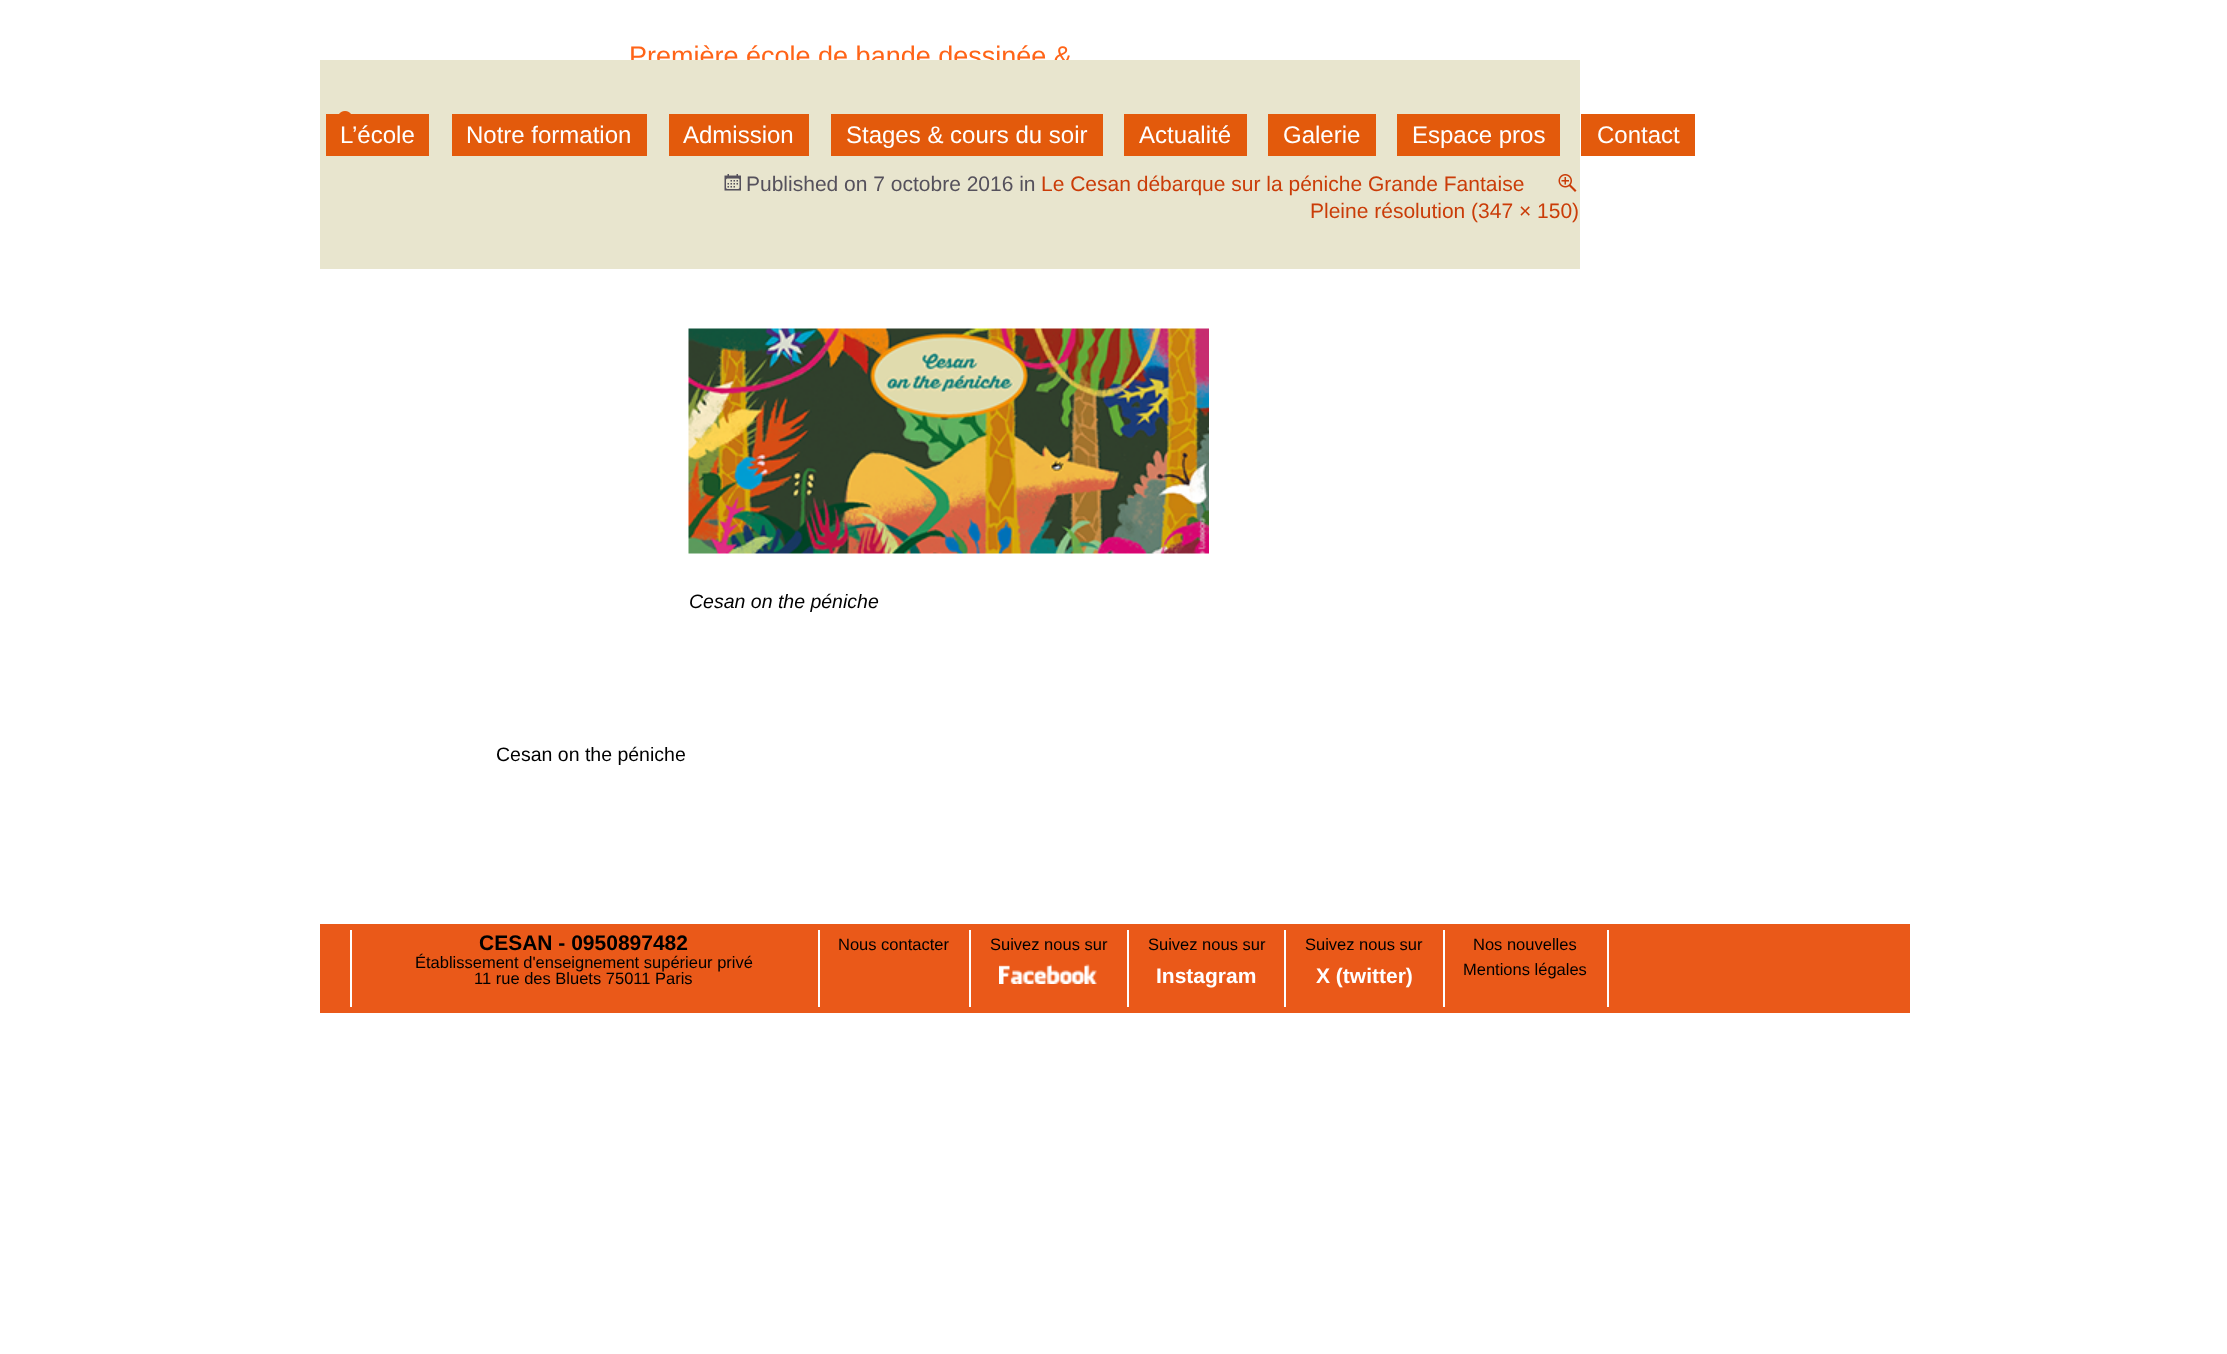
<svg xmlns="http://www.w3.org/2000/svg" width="2227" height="1354">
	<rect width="100%" height="100%" fill="#FFFFFF" />
	<text x="629" y="65" font-family="Liberation Sans" font-size="27" fill="#FF6418">Première école de bande dessinée &amp;</text>
	<rect x="320" y="60" width="1260" height="209" fill="#E8E5CE" />
	<rect x="326" y="114" width="103" height="42" fill="#E35A0C" />
	<text x="340" y="143" font-family="Liberation Sans" font-size="24" fill="#FFFFFF">L’école</text>
	<rect x="452" y="114" width="195" height="42" fill="#E35A0C" />
	<text x="466" y="143" font-family="Liberation Sans" font-size="24" fill="#FFFFFF">Notre formation</text>
	<rect x="669" y="114" width="140" height="42" fill="#E35A0C" />
	<text x="683" y="143" font-family="Liberation Sans" font-size="24" fill="#FFFFFF">Admission</text>
	<rect x="831" y="114" width="272" height="42" fill="#E35A0C" />
	<text x="846" y="143" font-family="Liberation Sans" font-size="24" fill="#FFFFFF">Stages &amp; cours du soir</text>
	<rect x="1124" y="114" width="123" height="42" fill="#E35A0C" />
	<text x="1139" y="143" font-family="Liberation Sans" font-size="24" fill="#FFFFFF">Actualité</text>
	<rect x="1268" y="114" width="108" height="42" fill="#E35A0C" />
	<text x="1283" y="143" font-family="Liberation Sans" font-size="24" fill="#FFFFFF">Galerie</text>
	<rect x="1397" y="114" width="163" height="42" fill="#E35A0C" />
	<text x="1412" y="143" font-family="Liberation Sans" font-size="24" fill="#FFFFFF">Espace pros</text>
	<rect x="1581" y="114" width="114" height="42" fill="#E35A0C" />
	<text x="1597" y="143" font-family="Liberation Sans" font-size="24" fill="#FFFFFF">Contact</text>
	<image x="339" y="111" width="12" height="3" href="assets/img1.png" />
	<image x="724" y="174" width="17" height="17" href="assets/img2.png" />
	<text x="746" y="191" font-family="Liberation Sans" font-size="21" fill="#55515C">Published on 7 octobre 2016 in</text>
	<text x="1041" y="191" font-family="Liberation Sans" font-size="21" fill="#CA3C08">Le Cesan débarque sur la péniche Grande Fantaise</text>
	<image x="1558" y="174" width="19" height="18" href="assets/img3.png" />
	<text x="1310" y="218" font-family="Liberation Sans" font-size="21" fill="#CA3C08">Pleine résolution (347 × 150)</text>
	<image x="688" y="328" width="521" height="226" href="assets/img4.png" />
	<text x="689" y="608" font-family="Liberation Sans" font-size="19.5" font-style="italic" fill="#000000">Cesan on the péniche</text>
	<text x="496" y="761" font-family="Liberation Sans" font-size="19.5" fill="#000000">Cesan on the péniche</text>
	<rect x="320" y="924" width="1590" height="89" fill="#EA5919" />
	<rect x="818" y="930" width="2" height="77" fill="#FFFFFF" />
	<rect x="350" y="930" width="2" height="77" fill="#FFFFFF" />
	<text x="479" y="950" font-family="Liberation Sans" font-size="21" font-weight="700" fill="#000000">CESAN - 0950897482</text>
	<g font-family="Liberation Sans" font-size="16.5" fill="#000000">
		<text x="415" y="968">Établissement d'enseignement supérieur privé</text>
		<text x="474" y="984">11 rue des Bluets 75011 Paris</text>
	</g>
	<rect x="969" y="930" width="2" height="77" fill="#FFFFFF" />
	<text x="838" y="950" font-family="Liberation Sans" font-size="16.5" fill="#000000">Nous contacter</text>
	<rect x="1127" y="930" width="2" height="77" fill="#FFFFFF" />
	<text x="990" y="950" font-family="Liberation Sans" font-size="16.5" fill="#000000">Suivez nous sur</text>
	<image x="999" y="964" width="98" height="20" href="assets/img5.png" />
	<rect x="1284" y="930" width="2" height="77" fill="#FFFFFF" />
	<text x="1148" y="950" font-family="Liberation Sans" font-size="16.5" fill="#000000">Suivez nous sur</text>
	<text x="1156" y="983" font-family="Liberation Sans" font-size="21" font-weight="700" fill="#FFFFFF">Instagram</text>
	<rect x="1443" y="930" width="2" height="77" fill="#FFFFFF" />
	<text x="1305" y="950" font-family="Liberation Sans" font-size="16.5" fill="#000000">Suivez nous sur</text>
	<text x="1316" y="983" font-family="Liberation Sans" font-size="21" font-weight="700" fill="#FFFFFF">X (twitter)</text>
	<rect x="1607" y="930" width="2" height="77" fill="#FFFFFF" />
	<g font-family="Liberation Sans" font-size="16.5" fill="#000000">
		<text x="1473" y="950">Nos nouvelles</text>
		<text x="1463" y="975">Mentions légales</text>
	</g>
</svg>
